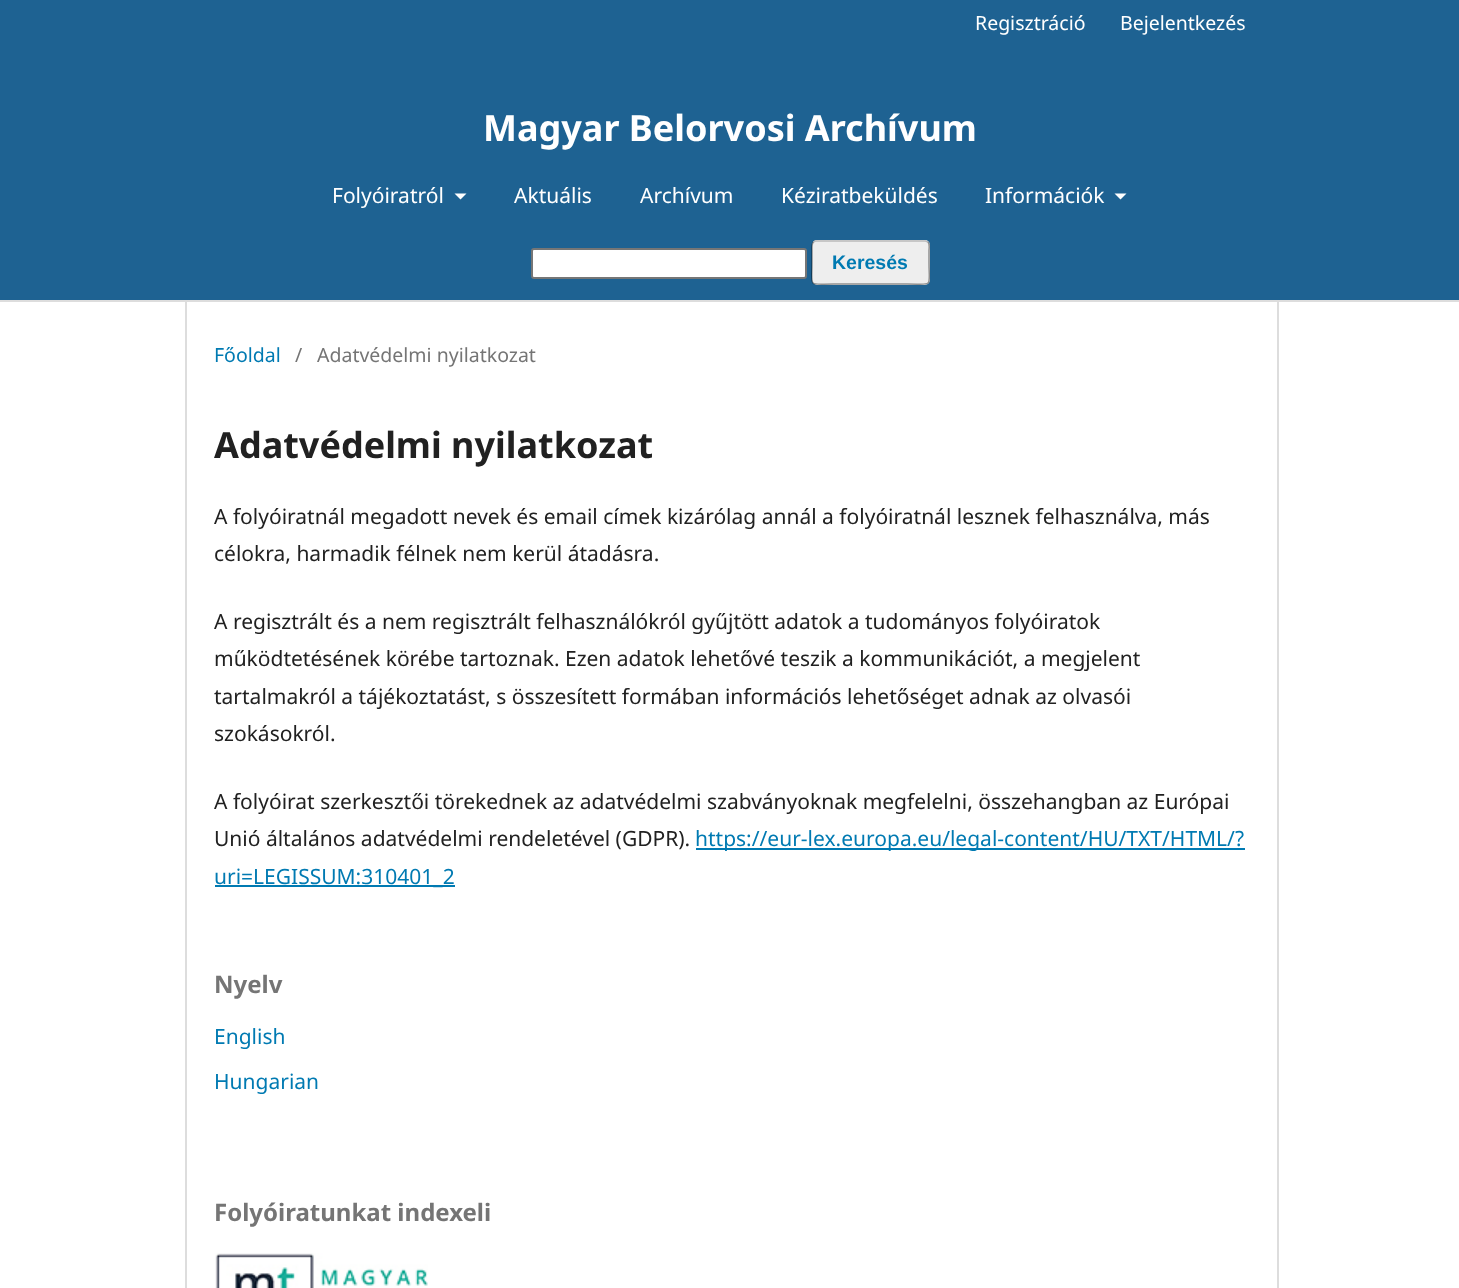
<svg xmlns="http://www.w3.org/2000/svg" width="1459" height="1288">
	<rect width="100%" height="100%" fill="#FFFFFF" />
	<rect x="0" y="0" width="1459" height="300" fill="#1E6292" />
	<rect x="0" y="300" width="1459" height="2" fill="#DDDDDD" />
	<g font-family="Noto Sans" font-size="19.5" fill="#FFFFFF">
		<text x="975" y="30">Regisztráció</text>
		<text x="1120" y="30">Bejelentkezés</text>
	</g>
	<text x="483" y="141" font-family="Noto Sans" font-size="36" font-weight="700" fill="#FFFFFF">Magyar Belorvosi Archívum</text>
	<text x="332" y="203" font-family="Noto Sans" font-size="21" fill="#FFFFFF">Folyóiratról</text>
	<path d="M454.5 193.5H466.5L460.5 199.5Z" fill="#FFFFFF" />
	<g font-family="Noto Sans" font-size="21" fill="#FFFFFF">
		<text x="514" y="203">Aktuális</text>
		<text x="640" y="203">Archívum</text>
		<text x="781" y="203">Kéziratbeküldés</text>
		<text x="985" y="203">Információk</text>
	</g>
	<path d="M1114.5 193.5H1126.5L1120.5 199.5Z" fill="#FFFFFF" />
	<rect x="532" y="249" width="274" height="29" rx="2" fill="#FFFFFF" stroke="#767676" stroke-width="2" />
	<rect x="812" y="240" width="118" height="45" rx="5" fill="#EEEEEE" />
	<path d="M813.5 242L815.5 241H907H925.5L928 242" fill="none" stroke="#BBBBBB" stroke-width="1.5" />
	<path d="M928 242C930 244 929 248.5 929 250.5V262.5C929 288.5 934 284 907 284H834C807.5 284 812 288.5 812 262.5V250.5C812 248.5 811.5 244 813.5 242" fill="none" stroke="#000000" stroke-opacity="0.4" stroke-width="1.5" />
	<text x="832" y="269" font-family="Liberation Sans" font-size="19.5" font-weight="700" fill="#007AB2">Keresés</text>
	<rect x="185" y="302" width="2" height="986" fill="#DDDDDD" />
	<text x="214" y="362" font-family="Noto Sans" font-size="19.5" fill="#007AB2">Főoldal</text>
	<g font-family="Noto Sans" font-size="19.5" fill="#757575">
		<text x="295" y="362">/</text>
		<text x="317" y="362">Adatvédelmi nyilatkozat</text>
	</g>
	<text x="214" y="458" font-family="Noto Sans" font-size="36" font-weight="700" fill="#212121">Adatvédelmi nyilatkozat</text>
	<g font-family="Noto Sans" font-size="21" fill="#212121">
		<text x="214" y="524">A folyóiratnál megadott nevek és email címek kizárólag annál a folyóiratnál lesznek felhasználva, más</text>
		<text x="214" y="561">célokra, harmadik félnek nem kerül átadásra.</text>
		<text x="214" y="629">A regisztrált és a nem regisztrált felhasználókról gyűjtött adatok a tudományos folyóiratok</text>
		<text x="214" y="666">működtetésének körébe tartoznak. Ezen adatok lehetővé teszik a kommunikációt, a megjelent</text>
		<text x="214" y="704">tartalmakról a tájékoztatást, s összesített formában információs lehetőséget adnak az olvasói</text>
		<text x="214" y="741">szokásokról.</text>
		<text x="214" y="809">A folyóirat szerkesztői törekednek az adatvédelmi szabványoknak megfelelni, összehangban az Európai</text>
		<text x="214" y="846">Unió általános adatvédelmi rendeletével (GDPR).</text>
	</g>
	<rect x="696" y="848" width="549" height="2" fill="#007AB2" />
	<text x="695" y="846" font-family="Noto Sans" font-size="21" fill="#007AB2">https://eur-lex.europa.eu/legal-content/HU/TXT/HTML/?</text>
	<rect x="215" y="885" width="240" height="2" fill="#007AB2" />
	<text x="214" y="884" font-family="Noto Sans" font-size="21" fill="#007AB2">uri=LEGISSUM:310401_2</text>
	<rect x="1277" y="302" width="2" height="986" fill="#DDDDDD" />
	<text x="214" y="993" font-family="Noto Sans" font-size="24" font-weight="700" fill="#757575">Nyelv</text>
	<g font-family="Noto Sans" font-size="21" fill="#007AB2">
		<text x="214" y="1044">English</text>
		<text x="214" y="1089">Hungarian</text>
	</g>
	<text x="214" y="1221" font-family="Noto Sans" font-size="24" font-weight="700" fill="#757575">Folyóiratunkat indexeli</text>
	<image x="215" y="1253" width="213" height="35" href="assets/img1.png" />
</svg>
